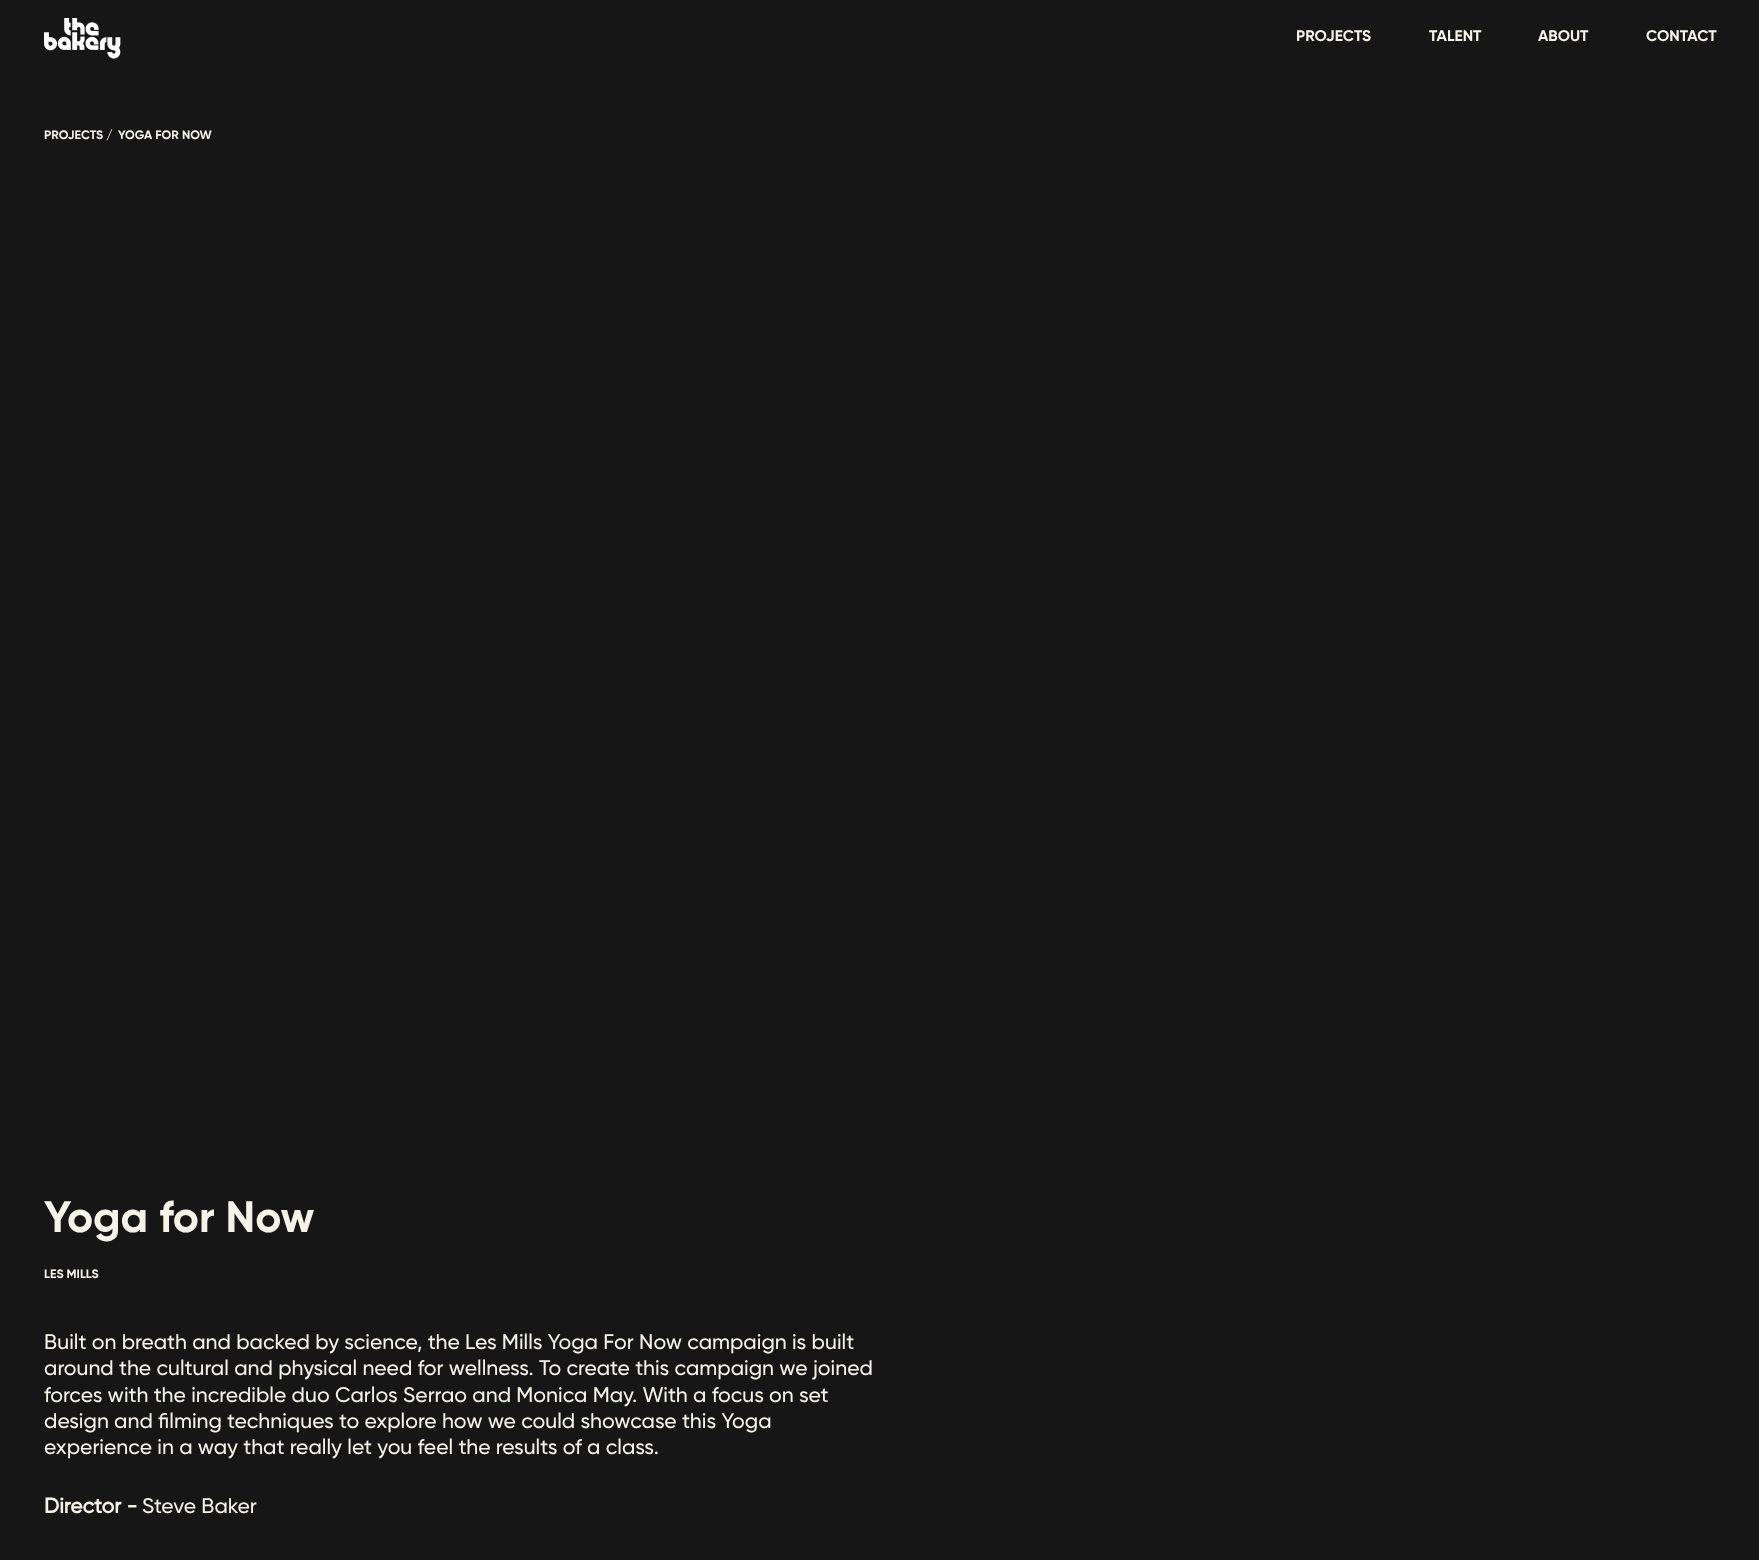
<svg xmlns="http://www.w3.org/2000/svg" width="1759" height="1560">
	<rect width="100%" height="100%" fill="#161616" />
	<image x="44" y="18" width="77" height="41" href="assets/img1.png" />
	<g font-family="Gilroy" font-size="15.5" font-weight="700" fill="#F5F2E7">
		<text x="1296" y="41">PROJECTS</text>
		<text x="1429" y="41">TALENT</text>
		<text x="1538" y="41">ABOUT</text>
		<text x="1646" y="41">CONTACT</text>
	</g>
	<g font-family="Gilroy" font-size="12.25" font-weight="700" fill="#F5F2E7">
		<text x="44" y="139">PROJECTS /</text>
		<text x="118" y="139">YOGA FOR NOW</text>
	</g>
	<text x="44" y="1232" font-family="Gilroy" font-size="44" font-weight="700" fill="#F5F2E7">Yoga for Now</text>
	<text x="44" y="1278" font-family="Gilroy" font-size="12.25" font-weight="700" fill="#F5F2E7">LES MILLS</text>
	<g font-family="Gilroy" font-size="21.15" font-weight="500" fill="#F5F2E7">
		<text x="44" y="1349">Built on breath and backed by science, the Les Mills Yoga For Now campaign is built</text>
		<text x="44" y="1375">around the cultural and physical need for wellness. To create this campaign we joined</text>
		<text x="44" y="1402">forces with the incredible duo Carlos Serrao and Monica May. With a focus on set</text>
		<text x="44" y="1428">design and filming techniques to explore how we could showcase this Yoga</text>
		<text x="44" y="1454">experience in a way that really let you feel the results of a class.</text>
	</g>
	<text x="44" y="1513" font-family="'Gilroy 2'" font-size="21.15" font-weight="700" fill="#F5F2E7">Director -</text>
	<text x="142" y="1513" font-family="Gilroy" font-size="21.15" font-weight="500" fill="#F5F2E7">Steve Baker</text>
</svg>
